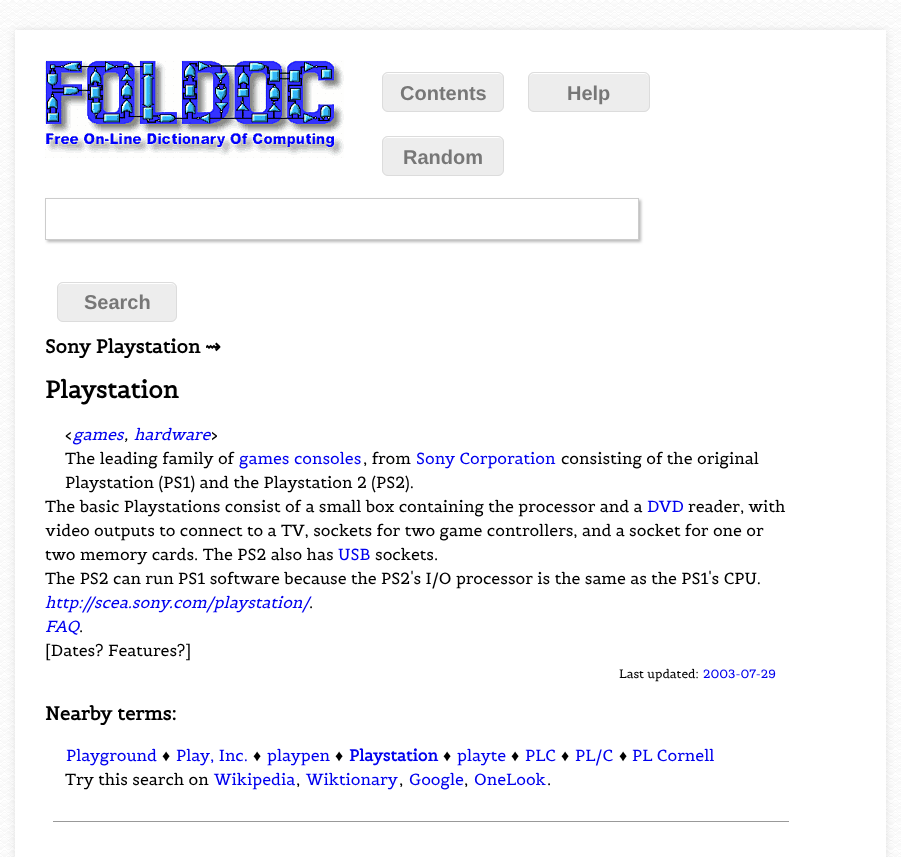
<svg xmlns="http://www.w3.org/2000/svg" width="901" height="857">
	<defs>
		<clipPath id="clip1"><path d="M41 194H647V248H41ZM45 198H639V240H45Z" clip-rule="evenodd" /></clipPath>
	</defs>
	<rect width="100%" height="100%" fill="#FFFFFF" />
	<image x="0" y="0" width="901" height="857" href="assets/img1.png" />
	<rect x="15" y="30" width="871" height="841" fill="#000000" fill-opacity="0.1" filter="blur(4.5px)" />
	<rect x="15" y="30" width="871" height="827" fill="#FFFFFF" />
	<image x="45" y="60" width="299" height="98" href="assets/img2.png" />
	<rect x="382" y="72" width="122" height="40" rx="6" fill="#EDEDED" />
	<path d="M388 74H498C501 74 503 76 503 79C503 68 484 73 480 73H406C402 73 383 68 383 79C383 76 385 74 388 74Z" fill="#FFFFFF" />
	<rect x="382.5" y="72.5" width="121" height="39" rx="5.5" fill="none" stroke="#DCDCDC" />
	<text x="400" y="100" font-family="Liberation Sans" font-size="20" font-weight="700" fill="#777777">Contents</text>
	<rect x="528" y="72" width="122" height="40" rx="6" fill="#EDEDED" />
	<path d="M534 74H644C647 74 649 76 649 79C649 68 630 73 626 73H552C548 73 529 68 529 79C529 76 531 74 534 74Z" fill="#FFFFFF" />
	<rect x="528.5" y="72.5" width="121" height="39" rx="5.5" fill="none" stroke="#DCDCDC" />
	<text x="567" y="100" font-family="Liberation Sans" font-size="20" font-weight="700" fill="#777777">Help</text>
	<rect x="382" y="136" width="122" height="40" rx="6" fill="#EDEDED" />
	<path d="M388 138H498C501 138 503 140 503 143C503 132 484 137 480 137H406C402 137 383 132 383 143C383 140 385 138 388 138Z" fill="#FFFFFF" />
	<rect x="382.5" y="136.5" width="121" height="39" rx="5.5" fill="none" stroke="#DCDCDC" />
	<text x="403" y="164" font-family="Liberation Sans" font-size="20" font-weight="700" fill="#777777">Random</text>
	<g clip-path="url(#clip1)">
		<rect x="47" y="200" width="594" height="42" fill="#323232" fill-opacity="0.34" filter="blur(1.5px)" />
	</g>
	<rect x="45.5" y="198.5" width="593" height="41" fill="none" stroke="#CCCCCC" />
	<rect x="57" y="282" width="120" height="40" rx="6" fill="#EDEDED" />
	<path d="M63 284H171C174 284 176 286 176 289C176 278 158 283 153 283H81C76 283 58 278 58 289C58 286 60 284 63 284Z" fill="#FFFFFF" />
	<rect x="57.5" y="282.5" width="119" height="39" rx="5.5" fill="none" stroke="#DCDCDC" />
	<text x="84" y="309" font-family="Liberation Sans" font-size="20" font-weight="700" fill="#777777">Search</text>
	<text x="45" y="353" font-family="Belgrano" font-size="18.75" font-weight="700" fill="#000000">Sony Playstation</text>
	<text x="205" y="353" font-family="DejaVu Sans" font-size="18.75" font-weight="700" fill="#000000">⇝</text>
	<text x="45" y="398" font-family="Belgrano" font-size="24" font-weight="700" fill="#000000">Playstation</text>
	<text x="65" y="440" font-family="Belgrano" font-size="16" fill="#000000">&lt;</text>
	<text x="73" y="440" font-family="Belgrano" font-size="16" font-style="italic" fill="#0000EE">games</text>
	<text x="124" y="440" font-family="Belgrano" font-size="16" font-style="italic" fill="#000000">,</text>
	<text x="134" y="440" font-family="Belgrano" font-size="16" font-style="italic" fill="#0000EE">hardware</text>
	<g font-family="Belgrano" font-size="16" fill="#000000">
		<text x="211" y="440">&gt;</text>
		<text x="65" y="464">The leading family of</text>
	</g>
	<text x="239" y="464" font-family="Belgrano" font-size="16" fill="#0000EE">games consoles</text>
	<text x="363" y="464" font-family="Belgrano" font-size="16" fill="#000000">, from</text>
	<text x="416" y="464" font-family="Belgrano" font-size="16" fill="#0000EE">Sony Corporation</text>
	<g font-family="Belgrano" font-size="16" fill="#000000">
		<text x="561" y="464">consisting of the original</text>
		<text x="65" y="488">Playstation (PS1) and the Playstation 2 (PS2).</text>
		<text x="45" y="512">The basic Playstations consist of a small box containing the processor and a</text>
	</g>
	<text x="647" y="512" font-family="Belgrano" font-size="16" fill="#0000EE">DVD</text>
	<g font-family="Belgrano" font-size="16" fill="#000000">
		<text x="688" y="512">reader, with</text>
		<text x="45" y="536">video outputs to connect to a TV, sockets for two game controllers, and a socket for one or</text>
		<text x="45" y="560">two memory cards. The PS2 also has</text>
	</g>
	<text x="338" y="560" font-family="Belgrano" font-size="16" fill="#0000EE">USB</text>
	<g font-family="Belgrano" font-size="16" fill="#000000">
		<text x="375" y="560">sockets.</text>
		<text x="45" y="584">The PS2 can run PS1 software because the PS2's I/O processor is the same as the PS1's CPU.</text>
	</g>
	<text x="45" y="608" font-family="Belgrano" font-size="16" font-style="italic" fill="#0000EE">http://scea.sony.com/playstation/</text>
	<text x="309" y="608" font-family="Belgrano" font-size="16" fill="#000000">.</text>
	<text x="45" y="632" font-family="Belgrano" font-size="16" font-style="italic" fill="#0000EE">FAQ</text>
	<g font-family="Belgrano" font-size="16" fill="#000000">
		<text x="79" y="632">.</text>
		<text x="45" y="656">[Dates? Features?]</text>
	</g>
	<text x="619" y="678" font-family="Belgrano" font-size="12" fill="#000000">Last updated:</text>
	<text x="703" y="678" font-family="Belgrano" font-size="12" fill="#0000EE">2003-07-29</text>
	<text x="45" y="720" font-family="Belgrano" font-size="18.75" font-weight="700" fill="#000000">Nearby terms:</text>
	<text x="66" y="761" font-family="Belgrano" font-size="16" fill="#0000EE">Playground</text>
	<text x="162" y="761" font-family="Liberation Serif" font-size="16" fill="#000000">♦</text>
	<text x="176" y="761" font-family="Belgrano" font-size="16" fill="#0000EE">Play, Inc.</text>
	<text x="253" y="761" font-family="Liberation Serif" font-size="16" fill="#000000">♦</text>
	<text x="267" y="761" font-family="Belgrano" font-size="16" fill="#0000EE">playpen</text>
	<text x="335" y="761" font-family="Liberation Serif" font-size="16" fill="#000000">♦</text>
	<text x="349" y="761" font-family="Belgrano" font-size="16" font-weight="700" fill="#0000EE">Playstation</text>
	<text x="443" y="761" font-family="Liberation Serif" font-size="16" fill="#000000">♦</text>
	<text x="457" y="761" font-family="Belgrano" font-size="16" fill="#0000EE">playte</text>
	<text x="511" y="761" font-family="Liberation Serif" font-size="16" fill="#000000">♦</text>
	<text x="525" y="761" font-family="Belgrano" font-size="16" fill="#0000EE">PLC</text>
	<text x="561" y="761" font-family="Liberation Serif" font-size="16" fill="#000000">♦</text>
	<text x="575" y="761" font-family="Belgrano" font-size="16" fill="#0000EE">PL/C</text>
	<text x="619" y="761" font-family="Liberation Serif" font-size="16" fill="#000000">♦</text>
	<text x="632" y="761" font-family="Belgrano" font-size="16" fill="#0000EE">PL Cornell</text>
	<text x="65" y="785" font-family="Belgrano" font-size="16" fill="#000000">Try this search on</text>
	<text x="214" y="785" font-family="Belgrano" font-size="16" fill="#0000EE">Wikipedia</text>
	<text x="296" y="785" font-family="Belgrano" font-size="16" fill="#000000">,</text>
	<text x="306" y="785" font-family="Belgrano" font-size="16" fill="#0000EE">Wiktionary</text>
	<text x="399" y="785" font-family="Belgrano" font-size="16" fill="#000000">,</text>
	<text x="409" y="785" font-family="Belgrano" font-size="16" fill="#0000EE">Google</text>
	<text x="464" y="785" font-family="Belgrano" font-size="16" fill="#000000">,</text>
	<text x="474" y="785" font-family="Belgrano" font-size="16" fill="#0000EE">OneLook</text>
	<text x="547" y="785" font-family="Belgrano" font-size="16" fill="#000000">.</text>
	<rect x="53" y="821" width="736" height="1" fill="#999999" />
</svg>
